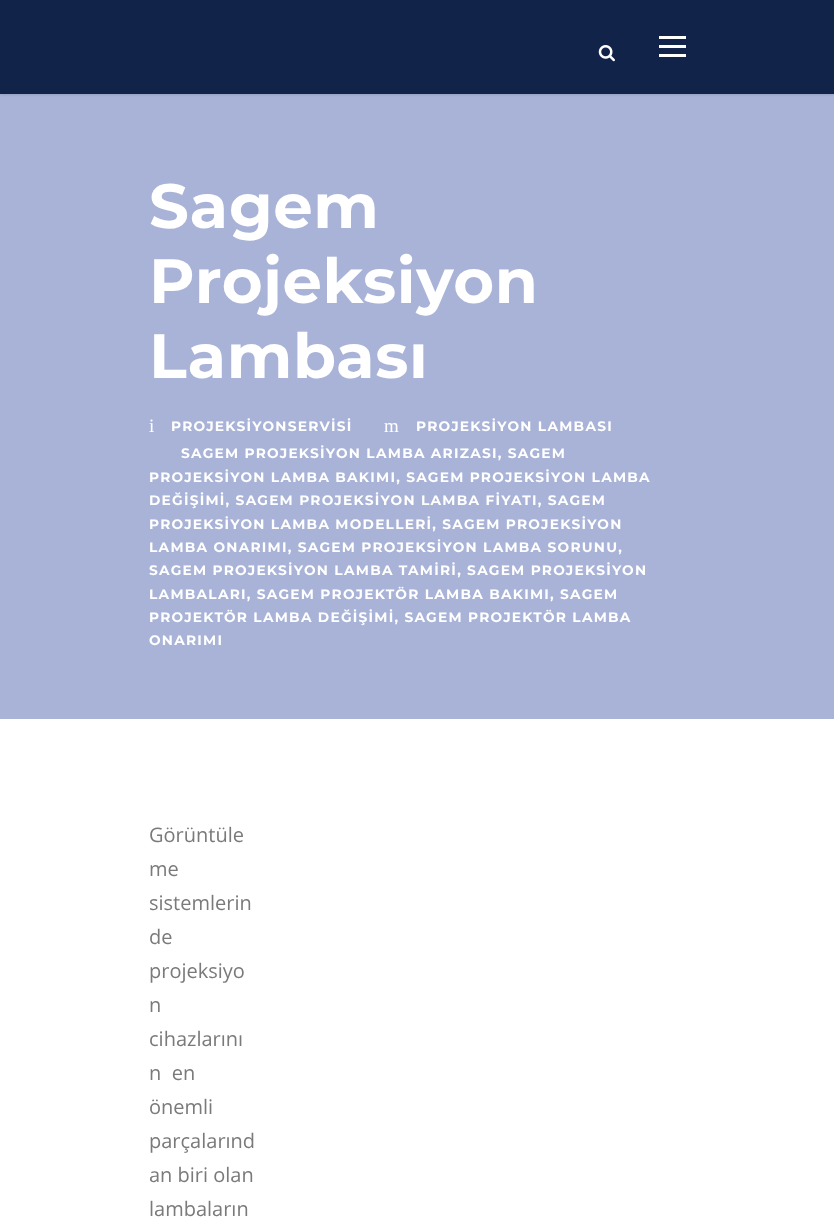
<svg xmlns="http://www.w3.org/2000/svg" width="834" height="1225">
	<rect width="100%" height="100%" fill="#FFFFFF" />
	<rect x="0" y="94" width="834" height="625" fill="#A8B3D7" />
	<rect x="0" y="1" width="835" height="94" fill="#000000" fill-opacity="0.1" filter="blur(1px)" />
	<rect x="0" y="0" width="834" height="94" fill="#112349" />
	<image x="598" y="45" width="17" height="17" href="assets/img1.png" />
	<rect x="659" y="36" width="27" height="3" fill="#FFFFFF" />
	<rect x="659" y="45" width="27" height="3" fill="#FFFFFF" />
	<rect x="659" y="54" width="27" height="3" fill="#FFFFFF" />
	<g font-family="Montserrat" font-size="62.5" font-weight="700" letter-spacing="0.6" fill="#FFFFFF">
		<text x="149" y="228">Sagem</text>
		<text x="149" y="303">Projeksiyon</text>
		<text x="149" y="378">Lambası</text>
	</g>
	<text x="149" y="432" font-family="Liberation Serif" font-size="19" letter-spacing="1.25" fill="#FFFFFF">i</text>
	<text x="171" y="431" font-family="Montserrat" font-size="13.75" font-weight="700" letter-spacing="1.25" fill="#FFFFFF">PROJEKSİYONSERVİSİ</text>
	<text x="384" y="432" font-family="Liberation Serif" font-size="19" letter-spacing="1.25" fill="#FFFFFF">m</text>
	<g font-family="Montserrat" font-size="13.75" font-weight="700" letter-spacing="1.25" fill="#FFFFFF">
		<text x="416" y="431">PROJEKSİYON LAMBASI</text>
		<text x="181" y="458">SAGEM PROJEKSİYON LAMBA ARIZASI, SAGEM</text>
		<text x="149" y="482">PROJEKSİYON LAMBA BAKIMI, SAGEM PROJEKSİYON LAMBA</text>
		<text x="149" y="505">DEĞİŞİMİ, SAGEM PROJEKSİYON LAMBA FİYATI, SAGEM</text>
		<text x="149" y="529">PROJEKSİYON LAMBA MODELLERİ, SAGEM PROJEKSİYON</text>
		<text x="149" y="552">LAMBA ONARIMI, SAGEM PROJEKSİYON LAMBA SORUNU,</text>
		<text x="149" y="575">SAGEM PROJEKSİYON LAMBA TAMİRİ, SAGEM PROJEKSİYON</text>
		<text x="149" y="599">LAMBALARI, SAGEM PROJEKTÖR LAMBA BAKIMI, SAGEM</text>
		<text x="149" y="622">PROJEKTÖR LAMBA DEĞİŞİMİ, SAGEM PROJEKTÖR LAMBA</text>
		<text x="149" y="645">ONARIMI</text>
	</g>
	<g font-family="Open Sans" font-size="20" fill="#7A7A7A">
		<text x="149" y="842">Görüntüle</text>
		<text x="149" y="876">me</text>
		<text x="149" y="910">sistemlerin</text>
		<text x="149" y="944">de</text>
		<text x="149" y="978">projeksiyo</text>
		<text x="149" y="1012">n</text>
		<text x="149" y="1046">cihazlarını</text>
		<text x="149" y="1080" xml:space="preserve">n  en</text>
		<text x="149" y="1114">önemli</text>
		<text x="149" y="1148">parçalarınd</text>
		<text x="149" y="1182">an biri olan</text>
		<text x="149" y="1216">lambaların</text>
	</g>
</svg>
